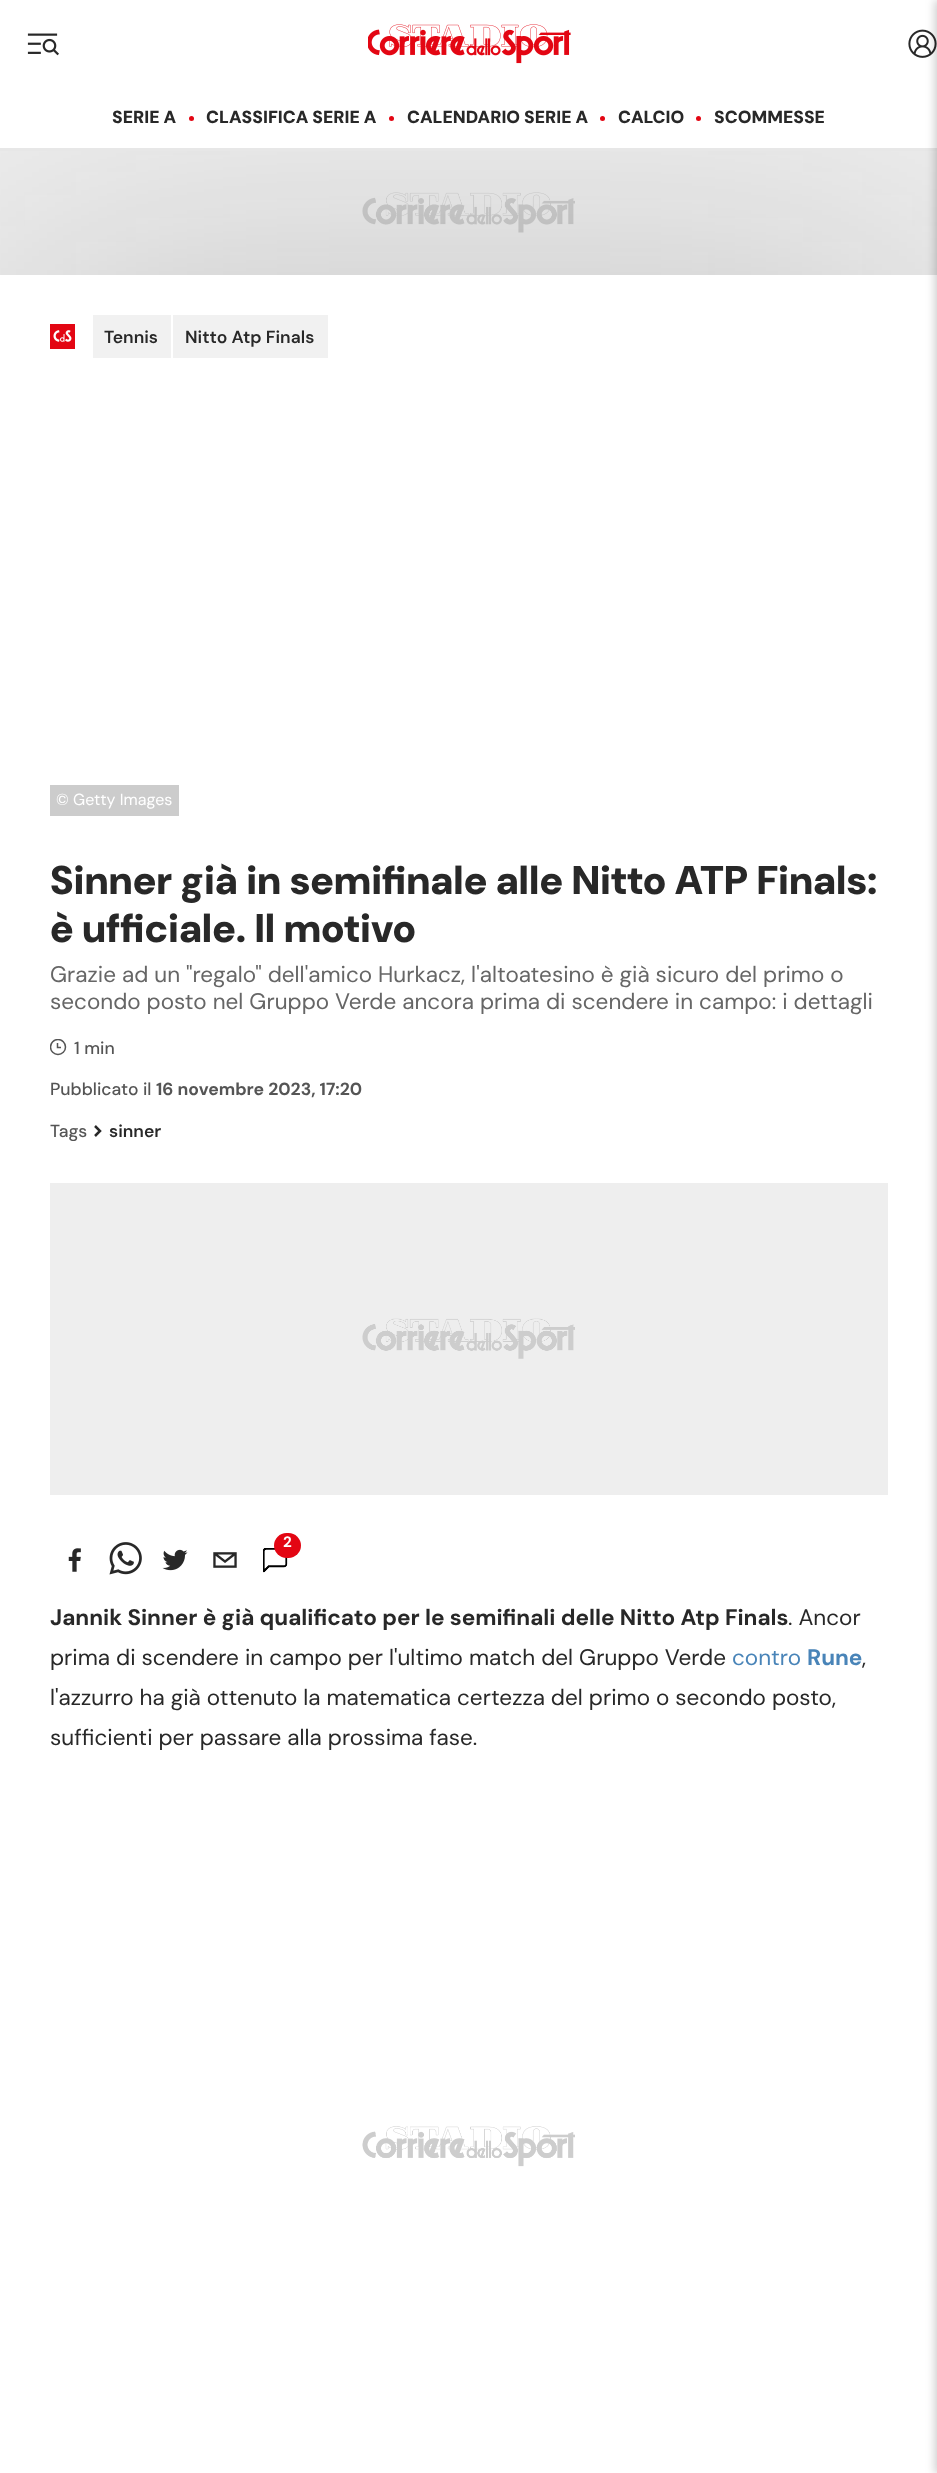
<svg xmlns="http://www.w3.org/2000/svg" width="937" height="2473">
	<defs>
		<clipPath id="clip1"><rect x="50" y="1039" width="18" height="17" /></clipPath>
	</defs>
	<rect width="100%" height="100%" fill="#EEEEEE" />
	<image x="362" y="192" width="213" height="41" href="assets/img4.png" />
	<rect x="0" y="275" width="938" height="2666" fill="#282828" fill-opacity="0.2" filter="blur(156px)" />
	<rect x="0" y="0" width="937" height="148" fill="#FFFFFF" />
	<image x="27" y="33" width="32" height="23" href="assets/img1.png" />
	<image x="368" y="24" width="203" height="40" href="assets/img2.png" />
	<image x="908" y="29" width="29" height="29" href="assets/img3.png" />
	<rect x="0" y="148" width="937" height="3" fill="#E7E7E7" />
	<text x="112" y="123" font-family="'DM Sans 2'" font-size="17.5" font-weight="900" fill="#282828">SERIE A</text>
	<circle cx="191.5" cy="118.5" r="2.5" fill="#E30613" />
	<text x="206" y="123" font-family="'DM Sans 2'" font-size="17.5" font-weight="900" fill="#282828">CLASSIFICA SERIE A</text>
	<circle cx="391.5" cy="118.5" r="2.5" fill="#E30613" />
	<text x="407" y="123" font-family="'DM Sans 2'" font-size="17.5" font-weight="900" fill="#282828">CALENDARIO SERIE A</text>
	<circle cx="602.5" cy="118.5" r="2.5" fill="#E30613" />
	<text x="618" y="123" font-family="'DM Sans 2'" font-size="17.5" font-weight="900" fill="#282828">CALCIO</text>
	<circle cx="698.5" cy="118.5" r="2.5" fill="#E30613" />
	<text x="714" y="123" font-family="'DM Sans 2'" font-size="17.5" font-weight="900" fill="#282828">SCOMMESSE</text>
	<rect x="0" y="275" width="937" height="2198" fill="#FFFFFF" />
	<rect x="935" y="0" width="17" height="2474" fill="#000000" fill-opacity="0.2" filter="blur(5px)" />
	<rect x="50" y="324" width="25" height="25" fill="#E30613" />
	<image x="53" y="330" width="19" height="12" href="assets/img5.png" />
	<rect x="93" y="315" width="78" height="43" fill="#F1F1F1" />
	<text x="104" y="343" font-family="DM Sans" font-size="17.5" font-weight="600" fill="#282828">Tennis</text>
	<rect x="173" y="315" width="155" height="43" fill="#F1F1F1" />
	<text x="185" y="343" font-family="DM Sans" font-size="17.5" font-weight="600" fill="#282828">Nitto Atp Finals</text>
	<rect x="50" y="785" width="129" height="31" fill="#CCCCCC" />
	<text x="56" y="805" font-family="'DM Sans 2'" font-size="16" fill="#FFFFFF">©</text>
	<text x="73" y="805" font-family="'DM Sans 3'" font-size="16" fill="#FFFFFF">Getty Images</text>
	<g font-family="DM Sans" font-size="40" font-weight="900" fill="#282828">
		<text x="50" y="894">Sinner già in semifinale alle Nitto ATP Finals:</text>
		<text x="50" y="942">è ufficiale. Il motivo</text>
	</g>
	<g font-family="DM Sans" font-size="22.5" fill="#666666">
		<text x="50" y="982">Grazie ad un "regalo" dell'amico Hurkacz, l'altoatesino è già sicuro del primo o</text>
		<text x="50" y="1009">secondo posto nel Gruppo Verde ancora prima di scendere in campo: i dettagli</text>
	</g>
	<g clip-path="url(#clip1)">
		<circle cx="58" cy="1047" r="7.5" fill="none" stroke="#555555" stroke-width="1.5" />
	</g>
	<path d="M57.5 1043V1047.5H61" fill="none" stroke="#555555" stroke-width="1.5" />
	<g font-family="DM Sans" font-size="17.5" font-weight="500" fill="#555555">
		<text x="74" y="1054">1 min</text>
		<text x="50" y="1095">Pubblicato il</text>
	</g>
	<text x="156" y="1095" font-family="DM Sans" font-size="17.5" font-weight="700" fill="#555555">16 novembre 2023, 17:20</text>
	<text x="50" y="1137" font-family="DM Sans" font-size="17.5" font-weight="500" fill="#555555">Tags</text>
	<path d="M95 1126L100 1131L95 1136" fill="none" stroke="#282828" stroke-width="2.5" />
	<text x="109" y="1137" font-family="DM Sans" font-size="17.5" font-weight="600" fill="#282828">sinner</text>
	<rect x="50" y="1183" width="838" height="312" fill="#EEEEEE" />
	<image x="362" y="1318" width="213" height="41" href="assets/img6.png" />
	<image x="68" y="1548" width="13" height="24" href="assets/img7.png" />
	<image x="109" y="1542" width="33" height="33" href="assets/img8.png" />
	<image x="162" y="1549" width="26" height="22" href="assets/img9.png" />
	<image x="213" y="1552" width="24" height="16" href="assets/img10.png" />
	<image x="263" y="1548" width="25" height="25" href="assets/img11.png" />
	<rect x="274" y="1533" width="27" height="25" rx="12.5" fill="#E30613" />
	<text x="283" y="1547" font-family="'DM Sans 3'" font-size="15" font-weight="700" fill="#FFFFFF">2</text>
	<text x="50" y="1625" font-family="'DM Sans 2'" font-size="22.5" font-weight="700" fill="#282828">Jannik Sinner è già qualificato per le semifinali delle Nitto Atp Finals</text>
	<g font-family="DM Sans" font-size="22.5" fill="#282828">
		<text x="788" y="1625">. Ancor</text>
		<text x="50" y="1665">prima di scendere in campo per l'ultimo match del Gruppo Verde</text>
	</g>
	<text x="732" y="1665" font-family="DM Sans" font-size="22.5" fill="#4984B8">contro</text>
	<text x="807" y="1665" font-family="'DM Sans 2'" font-size="22.5" font-weight="700" fill="#4984B8">Rune</text>
	<g font-family="DM Sans" font-size="22.5" fill="#282828">
		<text x="862" y="1665">,</text>
		<text x="50" y="1705">l'azzurro ha già ottenuto la matematica certezza del primo o secondo posto,</text>
		<text x="50" y="1745">sufficienti per passare alla prossima fase.</text>
	</g>
	<image x="362" y="2126" width="213" height="41" href="assets/img12.png" />
</svg>
